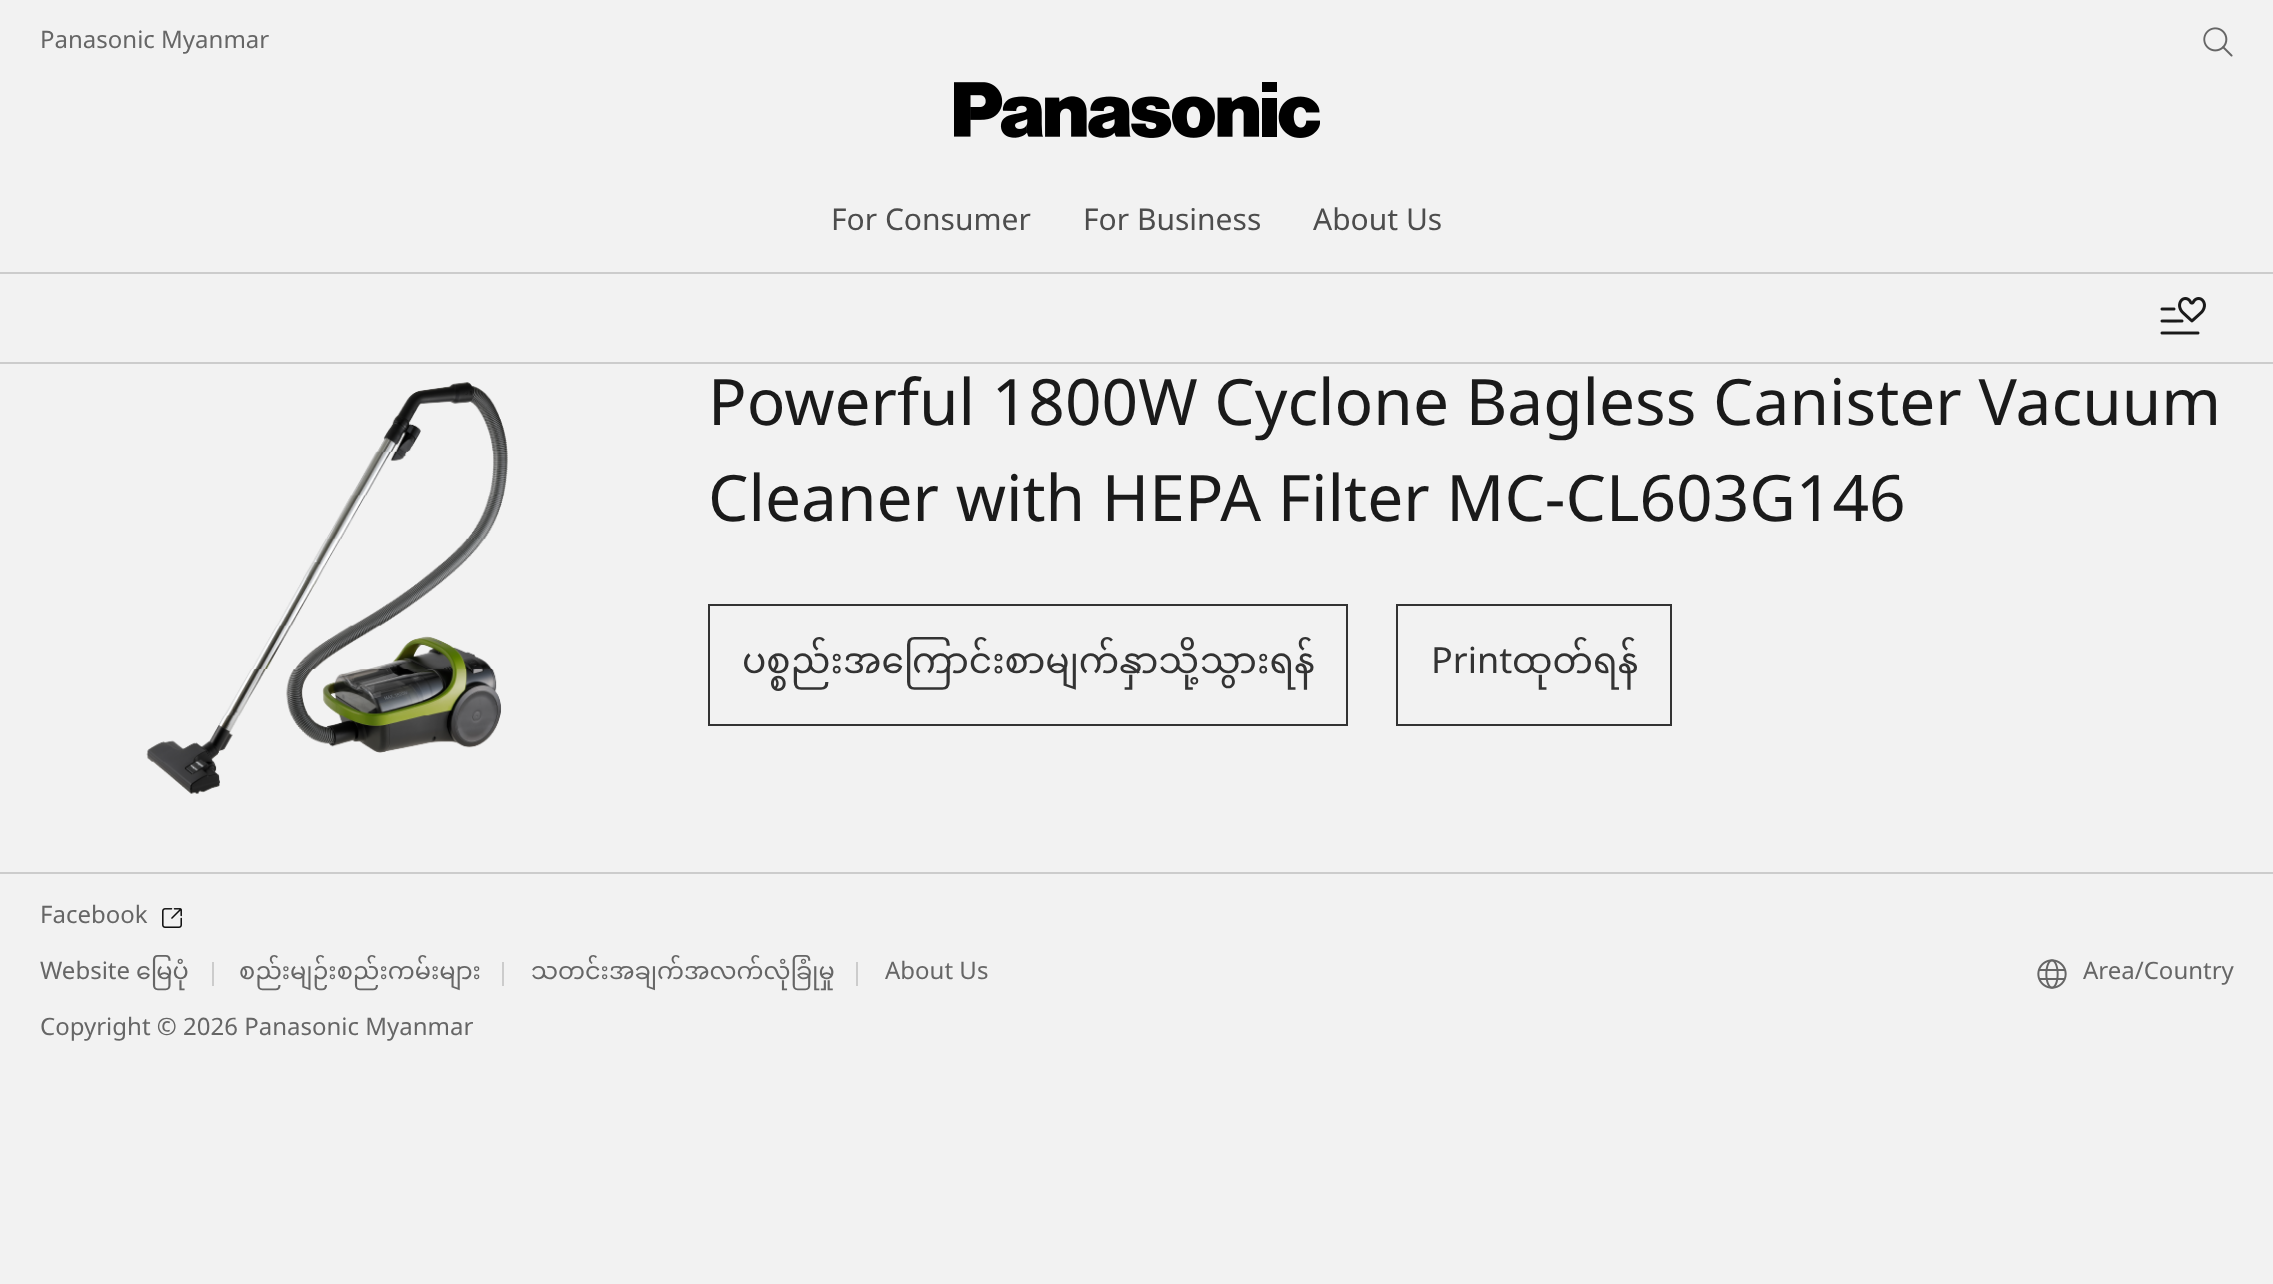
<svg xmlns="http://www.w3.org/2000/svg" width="2273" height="1284">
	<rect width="100%" height="100%" fill="#F2F2F2" />
	<text x="40" y="48" font-family="Noto Sans" font-size="24" fill="#666666">Panasonic Myanmar</text>
	<image x="2203" y="27" width="30" height="30" href="assets/img1.png" />
	<image x="954" y="82" width="366" height="56" href="assets/img2.png" />
	<g font-family="Noto Sans" font-size="30" fill="#4D4D4D">
		<text x="831" y="230">For Consumer</text>
		<text x="1083" y="230">For Business</text>
		<text x="1313" y="230">About Us</text>
	</g>
	<rect x="0" y="272" width="2273" height="2" fill="#CCCCCC" />
	<rect x="0" y="362" width="2273" height="2" fill="#CCCCCC" />
	<image x="2160" y="297" width="46" height="38" href="assets/img3.png" />
	<image x="146" y="382" width="362" height="412" href="assets/img4.png" />
	<g font-family="Noto Sans" font-size="64" fill="#1A1A1A">
		<text x="708" y="425">Powerful 1800W Cyclone Bagless Canister Vacuum</text>
		<text x="708" y="521">Cleaner with HEPA Filter MC-CL603G146</text>
	</g>
	<rect x="709" y="605" width="638" height="120" fill="none" stroke="#333333" stroke-width="2" />
	<text x="742" y="673" font-family="Noto Sans Myanmar" font-size="36" fill="#333333">ပစ္စည်းအကြောင်းစာမျက်နှာသို့သွားရန်</text>
	<rect x="1397" y="605" width="274" height="120" fill="none" stroke="#333333" stroke-width="2" />
	<text x="1431" y="673" font-family="Noto Sans" font-size="36" fill="#333333">Print</text>
	<text x="1512" y="673" font-family="Noto Sans Myanmar" font-size="36" fill="#333333">ထုတ်ရန်</text>
	<rect x="0" y="872" width="2273" height="2" fill="#CCCCCC" />
	<text x="40" y="923" font-family="Noto Sans" font-size="24" fill="#666666">Facebook</text>
	<image x="162" y="908" width="20" height="20" href="assets/img5.png" />
	<text x="40" y="979" font-family="Noto Sans" font-size="24" fill="#666666">Website</text>
	<text x="136" y="979" font-family="Noto Sans Myanmar" font-size="24" fill="#666666">မြေပုံ</text>
	<rect x="212" y="962" width="2" height="24" fill="#CCCCCC" />
	<text x="239" y="979" font-family="Noto Sans Myanmar" font-size="24" fill="#666666">စည်းမျဉ်းစည်းကမ်းများ</text>
	<rect x="502" y="962" width="2" height="24" fill="#CCCCCC" />
	<text x="531" y="979" font-family="Noto Sans Myanmar" font-size="24" fill="#666666">သတင်းအချက်အလက်လုံခြုံမှု</text>
	<rect x="856" y="962" width="2" height="24" fill="#CCCCCC" />
	<text x="885" y="979" font-family="Noto Sans" font-size="24" fill="#666666">About Us</text>
	<image x="2037" y="959" width="30" height="30" href="assets/img6.png" />
	<g font-family="Noto Sans" font-size="24" fill="#666666">
		<text x="2083" y="979">Area/Country</text>
		<text x="40" y="1035">Copyright © 2026 Panasonic Myanmar</text>
	</g>
</svg>
